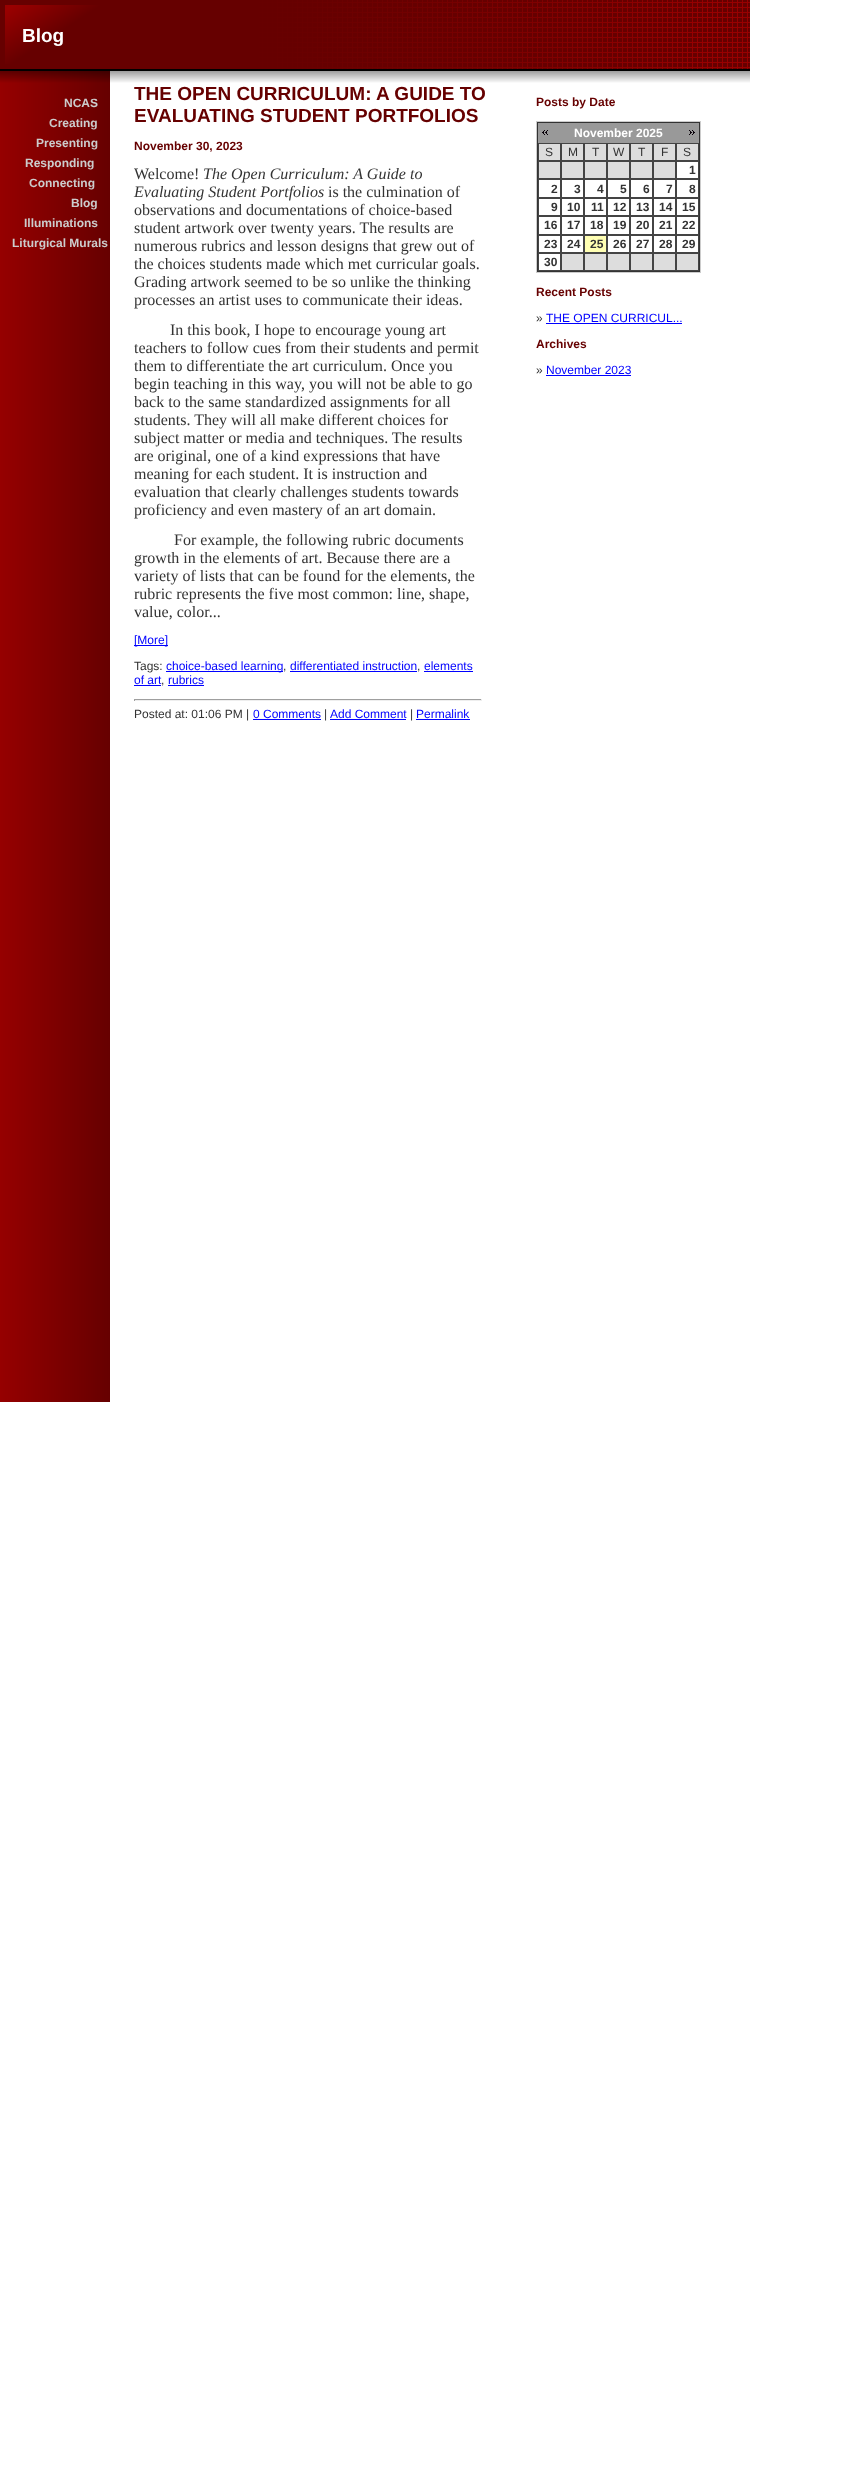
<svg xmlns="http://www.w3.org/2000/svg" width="850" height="2472">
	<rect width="100%" height="100%" fill="#FFFFFF" />
	<image x="0" y="83" width="110" height="1319" href="assets/img1.png" />
	<image x="0" y="0" width="750" height="83" href="assets/img2.png" />
	<text x="22" y="42" font-family="Liberation Sans" font-size="19" font-weight="700" fill="#FFFFFF">Blog</text>
	<g font-family="Liberation Sans" font-size="12" font-weight="700" fill="#CCCCCC">
		<text x="64" y="107">NCAS</text>
		<text x="49" y="127">Creating</text>
		<text x="36" y="147">Presenting</text>
		<text x="25" y="167">Responding</text>
		<text x="29" y="187">Connecting</text>
		<text x="71" y="207">Blog</text>
		<text x="24" y="227">Illuminations</text>
		<text x="12" y="247">Liturgical Murals</text>
	</g>
	<g font-family="Liberation Sans" font-size="19" font-weight="700" fill="#660000">
		<text x="134" y="100">THE OPEN CURRICULUM: A GUIDE TO</text>
		<text x="134" y="122">EVALUATING STUDENT PORTFOLIOS</text>
	</g>
	<text x="134" y="150" font-family="Liberation Sans" font-size="12" font-weight="700" fill="#660000">November 30, 2023</text>
	<text x="134" y="179" font-family="Liberation Serif" font-size="16" fill="#333333">Welcome!</text>
	<g font-family="Liberation Serif" font-size="16" font-style="italic" fill="#333333">
		<text x="203" y="179">The Open Curriculum: A Guide to</text>
		<text x="134" y="197">Evaluating Student Portfolios</text>
	</g>
	<g font-family="Liberation Serif" font-size="16" fill="#333333">
		<text x="328" y="197">is the culmination of</text>
		<text x="134" y="215">observations and documentations of choice-based</text>
		<text x="134" y="233">student artwork over twenty years. The results are</text>
		<text x="134" y="251">numerous rubrics and lesson designs that grew out of</text>
		<text x="134" y="269">the choices students made which met curricular goals.</text>
		<text x="134" y="287">Grading artwork seemed to be so unlike the thinking</text>
		<text x="134" y="305">processes an artist uses to communicate their ideas.</text>
		<text x="170" y="335">In this book, I hope to encourage young art</text>
		<text x="134" y="353">teachers to follow cues from their students and permit</text>
		<text x="134" y="371">them to differentiate the art curriculum. Once you</text>
		<text x="134" y="389">begin teaching in this way, you will not be able to go</text>
		<text x="134" y="407">back to the same standardized assignments for all</text>
		<text x="134" y="425">students. They will all make different choices for</text>
		<text x="134" y="443">subject matter or media and techniques. The results</text>
		<text x="134" y="461">are original, one of a kind expressions that have</text>
		<text x="134" y="479">meaning for each student. It is instruction and</text>
		<text x="134" y="497">evaluation that clearly challenges students towards</text>
		<text x="134" y="515">proficiency and even mastery of an art domain.</text>
		<text x="174" y="545">For example, the following rubric documents</text>
		<text x="134" y="563">growth in the elements of art. Because there are a</text>
		<text x="134" y="581">variety of lists that can be found for the elements, the</text>
		<text x="134" y="599">rubric represents the five most common: line, shape,</text>
		<text x="134" y="617">value, color...</text>
	</g>
	<rect x="134" y="645" width="34" height="1" fill="#0000FF" />
	<text x="134" y="644" font-family="Liberation Sans" font-size="12" fill="#0000FF">[More]</text>
	<text x="134" y="670" font-family="Liberation Sans" font-size="12" fill="#333333">Tags:</text>
	<rect x="166" y="671" width="117" height="1" fill="#0000FF" />
	<text x="166" y="670" font-family="Liberation Sans" font-size="12" fill="#0000FF">choice-based learning</text>
	<text x="283" y="670" font-family="Liberation Sans" font-size="12" fill="#333333">,</text>
	<text x="290" y="670" font-family="Liberation Sans" font-size="12" fill="#0000FF">differentiated instruction</text>
	<rect x="290" y="671" width="127" height="1" fill="#0000FF" />
	<text x="417" y="670" font-family="Liberation Sans" font-size="12" fill="#333333">,</text>
	<text x="424" y="670" font-family="Liberation Sans" font-size="12" fill="#0000FF">elements</text>
	<rect x="424" y="671" width="49" height="1" fill="#0000FF" />
	<text x="134" y="684" font-family="Liberation Sans" font-size="12" fill="#0000FF">of art</text>
	<rect x="134" y="685" width="27" height="1" fill="#0000FF" />
	<text x="161" y="684" font-family="Liberation Sans" font-size="12" fill="#333333">,</text>
	<text x="168" y="684" font-family="Liberation Sans" font-size="12" fill="#0000FF">rubrics</text>
	<rect x="168" y="685" width="36" height="1" fill="#0000FF" />
	<rect x="134" y="699" width="348" height="1" fill="#9F9F9F" />
	<rect x="481" y="699" width="1" height="2" fill="#EEEEEE" />
	<rect x="134" y="700" width="348" height="1" fill="#EEEEEE" />
	<rect x="134" y="699" width="1" height="2" fill="#9F9F9F" />
	<text x="134" y="718" font-family="Liberation Sans" font-size="12" fill="#333333">Posted at: 01:06 PM |</text>
	<text x="253" y="718" font-family="Liberation Sans" font-size="12" fill="#0000FF">0 Comments</text>
	<rect x="253" y="719" width="68" height="1" fill="#0000FF" />
	<text x="324" y="718" font-family="Liberation Sans" font-size="12" fill="#333333">|</text>
	<text x="330" y="718" font-family="Liberation Sans" font-size="12" fill="#0000FF">Add Comment</text>
	<rect x="330" y="719" width="76" height="1" fill="#0000FF" />
	<text x="410" y="718" font-family="Liberation Sans" font-size="12" fill="#333333">|</text>
	<text x="416" y="718" font-family="Liberation Sans" font-size="12" fill="#0000FF">Permalink</text>
	<rect x="416" y="719" width="54" height="1" fill="#0000FF" />
	<text x="536" y="106" font-family="Liberation Sans" font-size="12" font-weight="700" fill="#660000">Posts by Date</text>
	<rect x="536.5" y="121.5" width="164" height="151" fill="none" stroke="#CCCCCC" />
	<rect x="538" y="123" width="161" height="20" fill="#999999" />
	<rect x="537.5" y="122.5" width="162" height="149" fill="none" stroke="#333333" />
	<image x="542" y="130" width="6" height="5" href="assets/img3.png" />
	<text x="574" y="137" font-family="Liberation Sans" font-size="12" font-weight="700" fill="#FFFFFF">November 2025</text>
	<image x="689" y="130" width="6" height="5" href="assets/img4.png" />
	<rect x="538.5" y="143.5" width="22" height="17" fill="#DDDDDD" stroke="#444444" />
	<text x="545" y="156" font-family="Liberation Sans" font-size="12" fill="#333333">S</text>
	<rect x="561.5" y="143.5" width="22" height="17" fill="#DDDDDD" stroke="#444444" />
	<text x="568" y="156" font-family="Liberation Sans" font-size="12" fill="#333333">M</text>
	<rect x="584.5" y="143.5" width="22" height="17" fill="#DDDDDD" stroke="#444444" />
	<text x="592" y="156" font-family="Liberation Sans" font-size="12" fill="#333333">T</text>
	<rect x="607.5" y="143.5" width="22" height="17" fill="#DDDDDD" stroke="#444444" />
	<text x="613" y="156" font-family="Liberation Sans" font-size="12" fill="#333333">W</text>
	<rect x="630.5" y="143.5" width="22" height="17" fill="#DDDDDD" stroke="#444444" />
	<text x="638" y="156" font-family="Liberation Sans" font-size="12" fill="#333333">T</text>
	<rect x="653.5" y="143.5" width="22" height="17" fill="#DDDDDD" stroke="#444444" />
	<text x="661" y="156" font-family="Liberation Sans" font-size="12" fill="#333333">F</text>
	<rect x="676.5" y="143.5" width="22" height="17" fill="#DDDDDD" stroke="#444444" />
	<text x="683" y="156" font-family="Liberation Sans" font-size="12" fill="#333333">S</text>
	<rect x="538.5" y="161.5" width="22" height="17" fill="#DDDDDD" stroke="#444444" />
	<rect x="561.5" y="161.5" width="22" height="17" fill="#DDDDDD" stroke="#444444" />
	<rect x="584.5" y="161.5" width="22" height="17" fill="#DDDDDD" stroke="#444444" />
	<rect x="607.5" y="161.5" width="22" height="17" fill="#DDDDDD" stroke="#444444" />
	<rect x="630.5" y="161.5" width="22" height="17" fill="#DDDDDD" stroke="#444444" />
	<rect x="653.5" y="161.5" width="22" height="17" fill="#DDDDDD" stroke="#444444" />
	<rect x="676.5" y="161.5" width="22" height="17" fill="none" stroke="#444444" />
	<text x="689" y="174" font-family="Liberation Sans" font-size="12" font-weight="700" fill="#333333">1</text>
	<rect x="538.5" y="179.5" width="22" height="18" fill="none" stroke="#444444" />
	<text x="551" y="193" font-family="Liberation Sans" font-size="12" font-weight="700" fill="#333333">2</text>
	<rect x="561.5" y="179.5" width="22" height="18" fill="none" stroke="#444444" />
	<text x="574" y="193" font-family="Liberation Sans" font-size="12" font-weight="700" fill="#333333">3</text>
	<rect x="584.5" y="179.5" width="22" height="18" fill="none" stroke="#444444" />
	<text x="597" y="193" font-family="Liberation Sans" font-size="12" font-weight="700" fill="#333333">4</text>
	<rect x="607.5" y="179.5" width="22" height="18" fill="none" stroke="#444444" />
	<text x="620" y="193" font-family="Liberation Sans" font-size="12" font-weight="700" fill="#333333">5</text>
	<rect x="630.5" y="179.5" width="22" height="18" fill="none" stroke="#444444" />
	<text x="643" y="193" font-family="Liberation Sans" font-size="12" font-weight="700" fill="#333333">6</text>
	<rect x="653.5" y="179.5" width="22" height="18" fill="none" stroke="#444444" />
	<text x="666" y="193" font-family="Liberation Sans" font-size="12" font-weight="700" fill="#333333">7</text>
	<rect x="676.5" y="179.5" width="22" height="18" fill="none" stroke="#444444" />
	<text x="689" y="193" font-family="Liberation Sans" font-size="12" font-weight="700" fill="#333333">8</text>
	<rect x="538.5" y="198.5" width="22" height="17" fill="none" stroke="#444444" />
	<text x="551" y="211" font-family="Liberation Sans" font-size="12" font-weight="700" fill="#333333">9</text>
	<rect x="561.5" y="198.5" width="22" height="17" fill="none" stroke="#444444" />
	<text x="567" y="211" font-family="Liberation Sans" font-size="12" font-weight="700" fill="#333333">10</text>
	<rect x="584.5" y="198.5" width="22" height="17" fill="none" stroke="#444444" />
	<text x="591" y="211" font-family="Liberation Sans" font-size="12" font-weight="700" fill="#333333">11</text>
	<rect x="607.5" y="198.5" width="22" height="17" fill="none" stroke="#444444" />
	<text x="613" y="211" font-family="Liberation Sans" font-size="12" font-weight="700" fill="#333333">12</text>
	<rect x="630.5" y="198.5" width="22" height="17" fill="none" stroke="#444444" />
	<text x="636" y="211" font-family="Liberation Sans" font-size="12" font-weight="700" fill="#333333">13</text>
	<rect x="653.5" y="198.5" width="22" height="17" fill="none" stroke="#444444" />
	<text x="659" y="211" font-family="Liberation Sans" font-size="12" font-weight="700" fill="#333333">14</text>
	<rect x="676.5" y="198.5" width="22" height="17" fill="none" stroke="#444444" />
	<text x="682" y="211" font-family="Liberation Sans" font-size="12" font-weight="700" fill="#333333">15</text>
	<rect x="538.5" y="216.5" width="22" height="18" fill="none" stroke="#444444" />
	<text x="544" y="229" font-family="Liberation Sans" font-size="12" font-weight="700" fill="#333333">16</text>
	<rect x="561.5" y="216.5" width="22" height="18" fill="none" stroke="#444444" />
	<text x="567" y="229" font-family="Liberation Sans" font-size="12" font-weight="700" fill="#333333">17</text>
	<rect x="584.5" y="216.5" width="22" height="18" fill="none" stroke="#444444" />
	<text x="590" y="229" font-family="Liberation Sans" font-size="12" font-weight="700" fill="#333333">18</text>
	<rect x="607.5" y="216.5" width="22" height="18" fill="none" stroke="#444444" />
	<text x="613" y="229" font-family="Liberation Sans" font-size="12" font-weight="700" fill="#333333">19</text>
	<rect x="630.5" y="216.5" width="22" height="18" fill="none" stroke="#444444" />
	<text x="636" y="229" font-family="Liberation Sans" font-size="12" font-weight="700" fill="#333333">20</text>
	<rect x="653.5" y="216.5" width="22" height="18" fill="none" stroke="#444444" />
	<text x="659" y="229" font-family="Liberation Sans" font-size="12" font-weight="700" fill="#333333">21</text>
	<rect x="676.5" y="216.5" width="22" height="18" fill="none" stroke="#444444" />
	<text x="682" y="229" font-family="Liberation Sans" font-size="12" font-weight="700" fill="#333333">22</text>
	<rect x="538.5" y="235.5" width="22" height="17" fill="none" stroke="#444444" />
	<text x="544" y="248" font-family="Liberation Sans" font-size="12" font-weight="700" fill="#333333">23</text>
	<rect x="561.5" y="235.5" width="22" height="17" fill="none" stroke="#444444" />
	<text x="567" y="248" font-family="Liberation Sans" font-size="12" font-weight="700" fill="#333333">24</text>
	<rect x="584.5" y="235.5" width="22" height="17" fill="#FFFFB3" stroke="#444444" />
	<text x="590" y="248" font-family="Liberation Sans" font-size="12" font-weight="700" fill="#333333">25</text>
	<rect x="607.5" y="235.5" width="22" height="17" fill="none" stroke="#444444" />
	<text x="613" y="248" font-family="Liberation Sans" font-size="12" font-weight="700" fill="#333333">26</text>
	<rect x="630.5" y="235.5" width="22" height="17" fill="none" stroke="#444444" />
	<text x="636" y="248" font-family="Liberation Sans" font-size="12" font-weight="700" fill="#333333">27</text>
	<rect x="653.5" y="235.5" width="22" height="17" fill="none" stroke="#444444" />
	<text x="659" y="248" font-family="Liberation Sans" font-size="12" font-weight="700" fill="#333333">28</text>
	<rect x="676.5" y="235.5" width="22" height="17" fill="none" stroke="#444444" />
	<text x="682" y="248" font-family="Liberation Sans" font-size="12" font-weight="700" fill="#333333">29</text>
	<rect x="538.5" y="253.5" width="22" height="17" fill="none" stroke="#444444" />
	<text x="544" y="266" font-family="Liberation Sans" font-size="12" font-weight="700" fill="#333333">30</text>
	<rect x="561.5" y="253.5" width="22" height="17" fill="#DDDDDD" stroke="#444444" />
	<rect x="584.5" y="253.5" width="22" height="17" fill="#DDDDDD" stroke="#444444" />
	<rect x="607.5" y="253.5" width="22" height="17" fill="#DDDDDD" stroke="#444444" />
	<rect x="630.5" y="253.5" width="22" height="17" fill="#DDDDDD" stroke="#444444" />
	<rect x="653.5" y="253.5" width="22" height="17" fill="#DDDDDD" stroke="#444444" />
	<rect x="676.5" y="253.5" width="22" height="17" fill="#DDDDDD" stroke="#444444" />
	<text x="536" y="296" font-family="Liberation Sans" font-size="12" font-weight="700" fill="#660000">Recent Posts</text>
	<text x="536" y="322" font-family="Liberation Sans" font-size="12" fill="#333333">»</text>
	<text x="546" y="322" font-family="Liberation Sans" font-size="12" fill="#0000FF">THE OPEN CURRICUL...</text>
	<rect x="546" y="323" width="136" height="1" fill="#0000FF" />
	<text x="536" y="348" font-family="Liberation Sans" font-size="12" font-weight="700" fill="#660000">Archives</text>
	<text x="536" y="374" font-family="Liberation Sans" font-size="12" fill="#333333">»</text>
	<text x="546" y="374" font-family="Liberation Sans" font-size="12" fill="#0000FF">November 2023</text>
	<rect x="546" y="375" width="85" height="1" fill="#0000FF" />
</svg>
